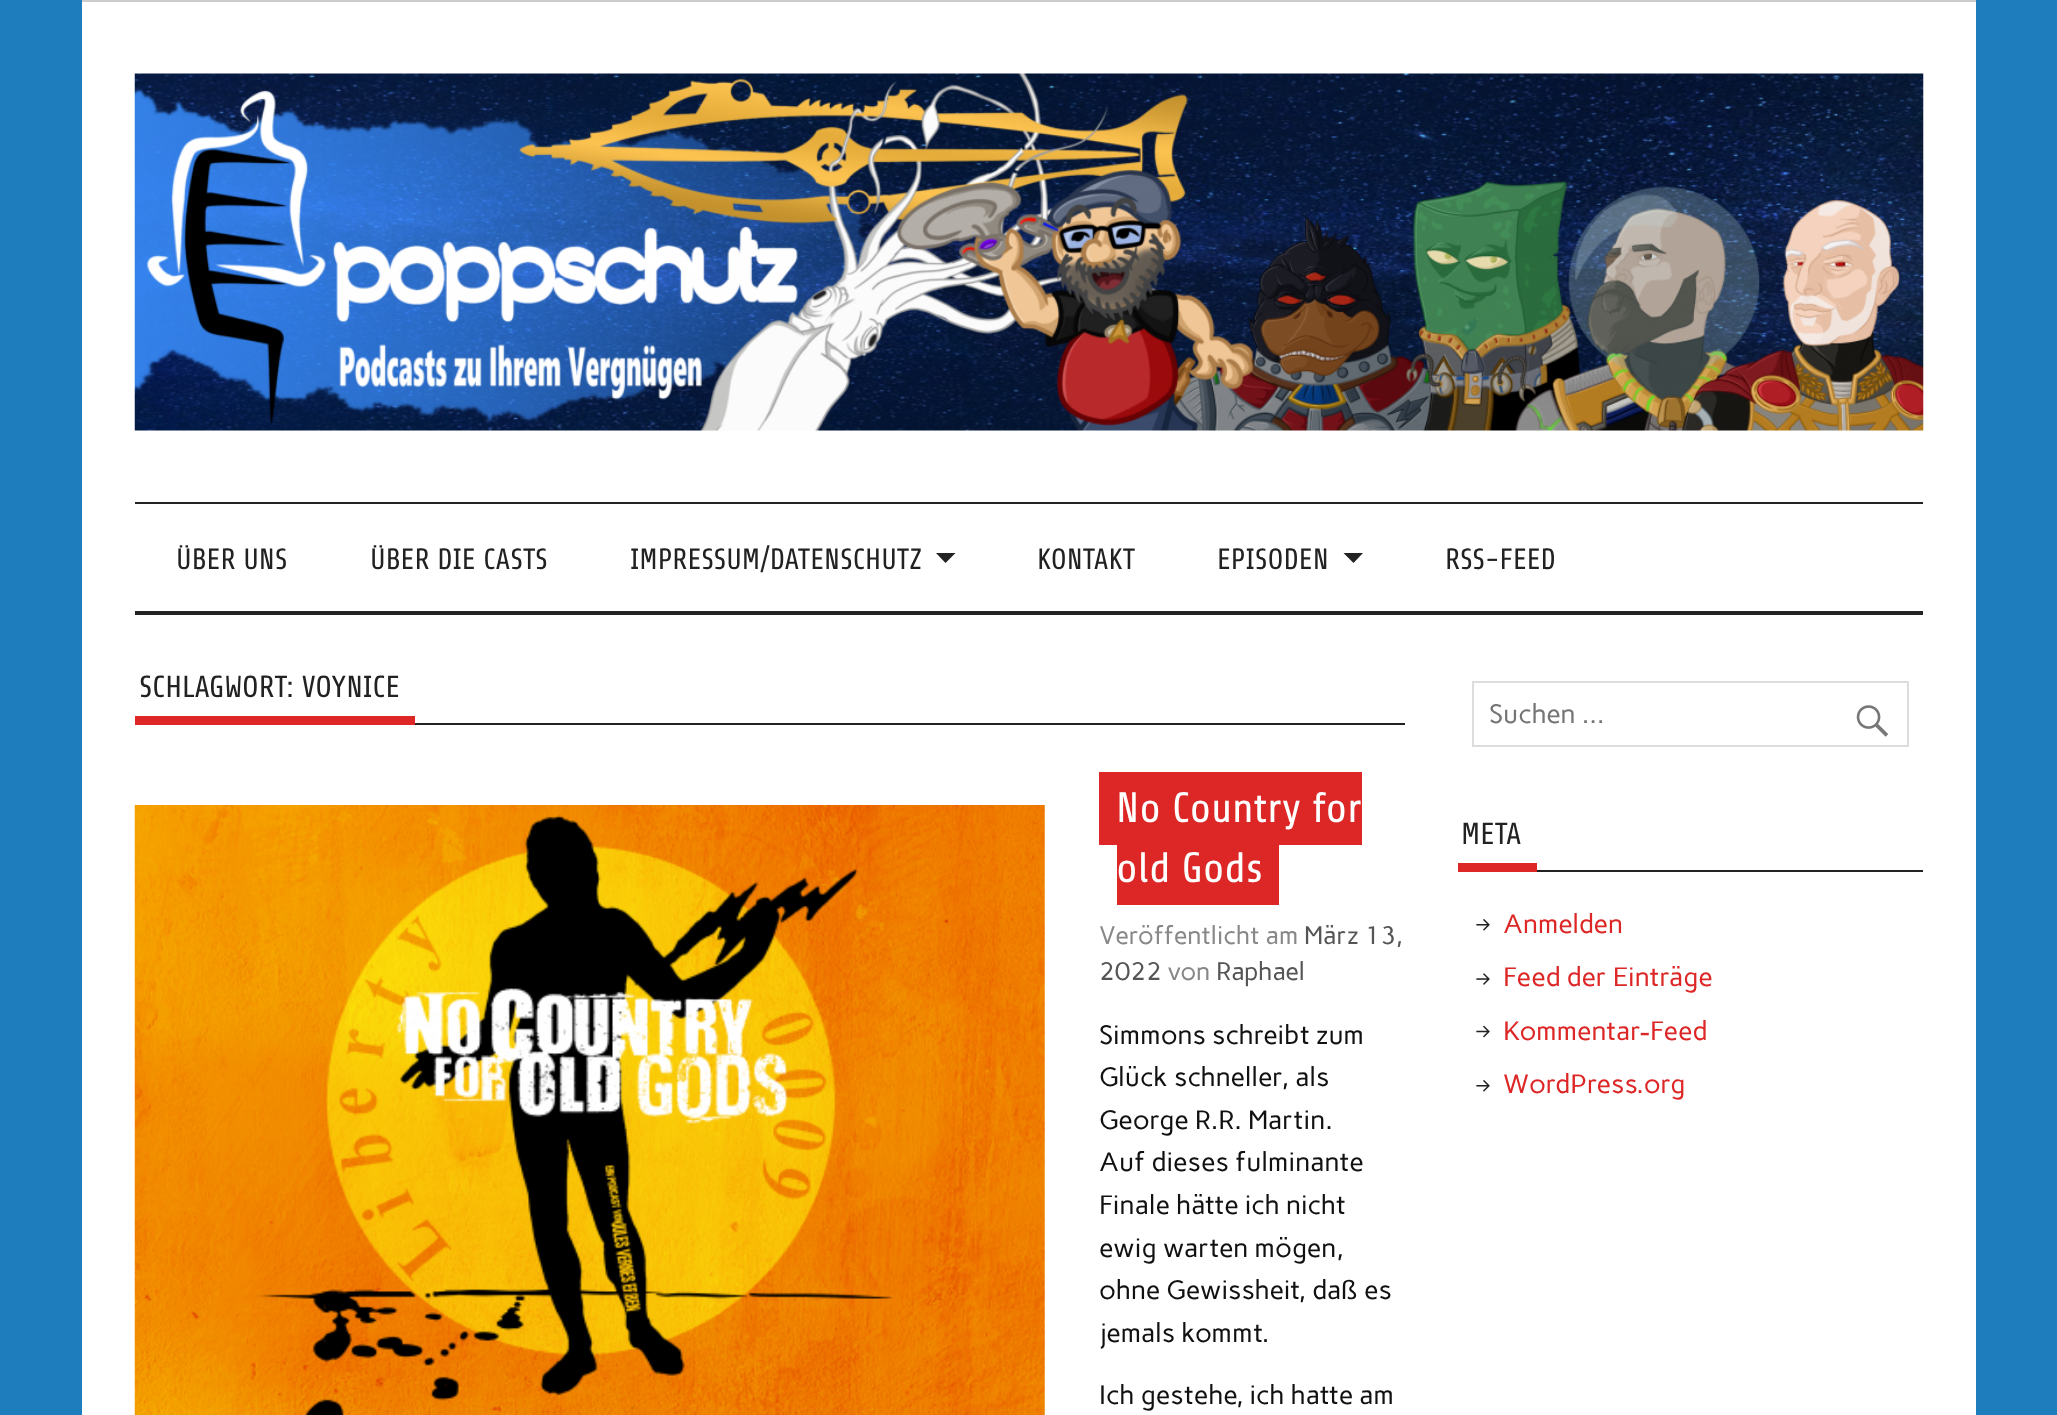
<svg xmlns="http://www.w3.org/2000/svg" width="2057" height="1415">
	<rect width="100%" height="100%" fill="#1E7DBC" />
	<rect x="82" y="2" width="1894" height="1413" fill="#FFFFFF" />
	<rect x="82" y="0" width="1894" height="2" fill="#CCCCCC" />
	<image x="134" y="73" width="1790" height="358" href="assets/img1.png" />
	<rect x="135" y="502" width="1788" height="2" fill="#222222" />
	<rect x="135" y="611" width="1788" height="4" fill="#222222" />
	<g font-family="Share" font-size="29.25" fill="#222222">
		<text x="176" y="569">ÜBER UNS</text>
		<text x="370" y="569">ÜBER DIE CASTS</text>
		<text x="630" y="569">IMPRESSUM/DATENSCHUTZ</text>
	</g>
	<path d="M936 553H955.5L945.5 563Z" fill="#222222" />
	<g font-family="Share" font-size="29.25" fill="#222222">
		<text x="1037" y="569">KONTAKT</text>
		<text x="1217" y="569">EPISODEN</text>
	</g>
	<path d="M1343.5 553H1363L1353.5 563Z" fill="#222222" />
	<text x="1445" y="569" font-family="Share" font-size="29.25" fill="#222222">RSS-FEED</text>
	<rect x="415" y="723" width="990" height="2" fill="#222222" />
	<rect x="135" y="716" width="280" height="9" fill="#DD2727" />
	<text x="139" y="697" font-family="Share" font-size="30.5" fill="#222222">SCHLAGWORT: VOYNICE</text>
	<image x="134" y="805" width="911" height="610" href="assets/img2.png" />
	<rect x="1099" y="772" width="263" height="73" fill="#DD2727" />
	<text x="1116" y="822" font-family="Share" font-size="42.5" fill="#FFFFFF">No Country for</text>
	<rect x="1117" y="845" width="162" height="60" fill="#DD2727" />
	<text x="1116" y="882" font-family="Share" font-size="42.5" fill="#FFFFFF">old Gods</text>
	<text x="1099" y="944" font-family="Carme" font-size="25.25" fill="#888888">Veröffentlicht am</text>
	<g font-family="Carme" font-size="25.25" fill="#555555">
		<text x="1304" y="944">März 13,</text>
		<text x="1099" y="980">2022</text>
	</g>
	<text x="1167" y="980" font-family="Carme" font-size="25.25" fill="#888888">von</text>
	<text x="1216" y="980" font-family="Carme" font-size="25.25" fill="#555555">Raphael</text>
	<g font-family="Carme" font-size="26.6" fill="#111111">
		<text x="1099" y="1044">Simmons schreibt zum</text>
		<text x="1099" y="1086">Glück schneller, als</text>
		<text x="1099" y="1129">George R.R. Martin.</text>
		<text x="1099" y="1171">Auf dieses fulminante</text>
		<text x="1099" y="1214">Finale hätte ich nicht</text>
		<text x="1099" y="1257">ewig warten mögen,</text>
		<text x="1099" y="1299">ohne Gewissheit, da</text>
	</g>
	<text x="1341" y="1299" font-family="Liberation Sans" font-size="26.6" fill="#111111">ß</text>
	<g font-family="Carme" font-size="26.6" fill="#111111">
		<text x="1364" y="1299">es</text>
		<text x="1099" y="1342">jemals kommt.</text>
		<text x="1099" y="1404">Ich gestehe, ich hatte am</text>
	</g>
	<rect x="1473" y="682" width="435" height="64" fill="none" stroke="#DDDDDD" stroke-width="2" />
	<text x="1489" y="723" font-family="Carme" font-size="26.6" fill="#757575">Suchen …</text>
	<image x="1856" y="705" width="33" height="32" href="assets/img3.png" />
	<rect x="1537" y="870" width="386" height="2" fill="#222222" />
	<rect x="1458" y="863" width="79" height="9" fill="#DD2727" />
	<text x="1461" y="844" font-family="Share" font-size="30.5" fill="#222222">META</text>
	<image x="1476" y="919" width="14" height="12" href="assets/img4.png" />
	<text x="1503" y="933" font-family="Carme" font-size="26.6" fill="#DD2727">Anmelden</text>
	<image x="1476" y="973" width="14" height="12" href="assets/img5.png" />
	<text x="1503" y="986" font-family="Carme" font-size="26.6" fill="#DD2727">Feed der Einträge</text>
	<image x="1476" y="1025" width="14" height="13" href="assets/img6.png" />
	<text x="1503" y="1040" font-family="Carme" font-size="26.6" fill="#DD2727">Kommentar-Feed</text>
	<image x="1476" y="1080" width="14" height="12" href="assets/img4.png" />
	<text x="1503" y="1093" font-family="Carme" font-size="26.6" fill="#DD2727">WordPress.org</text>
</svg>
